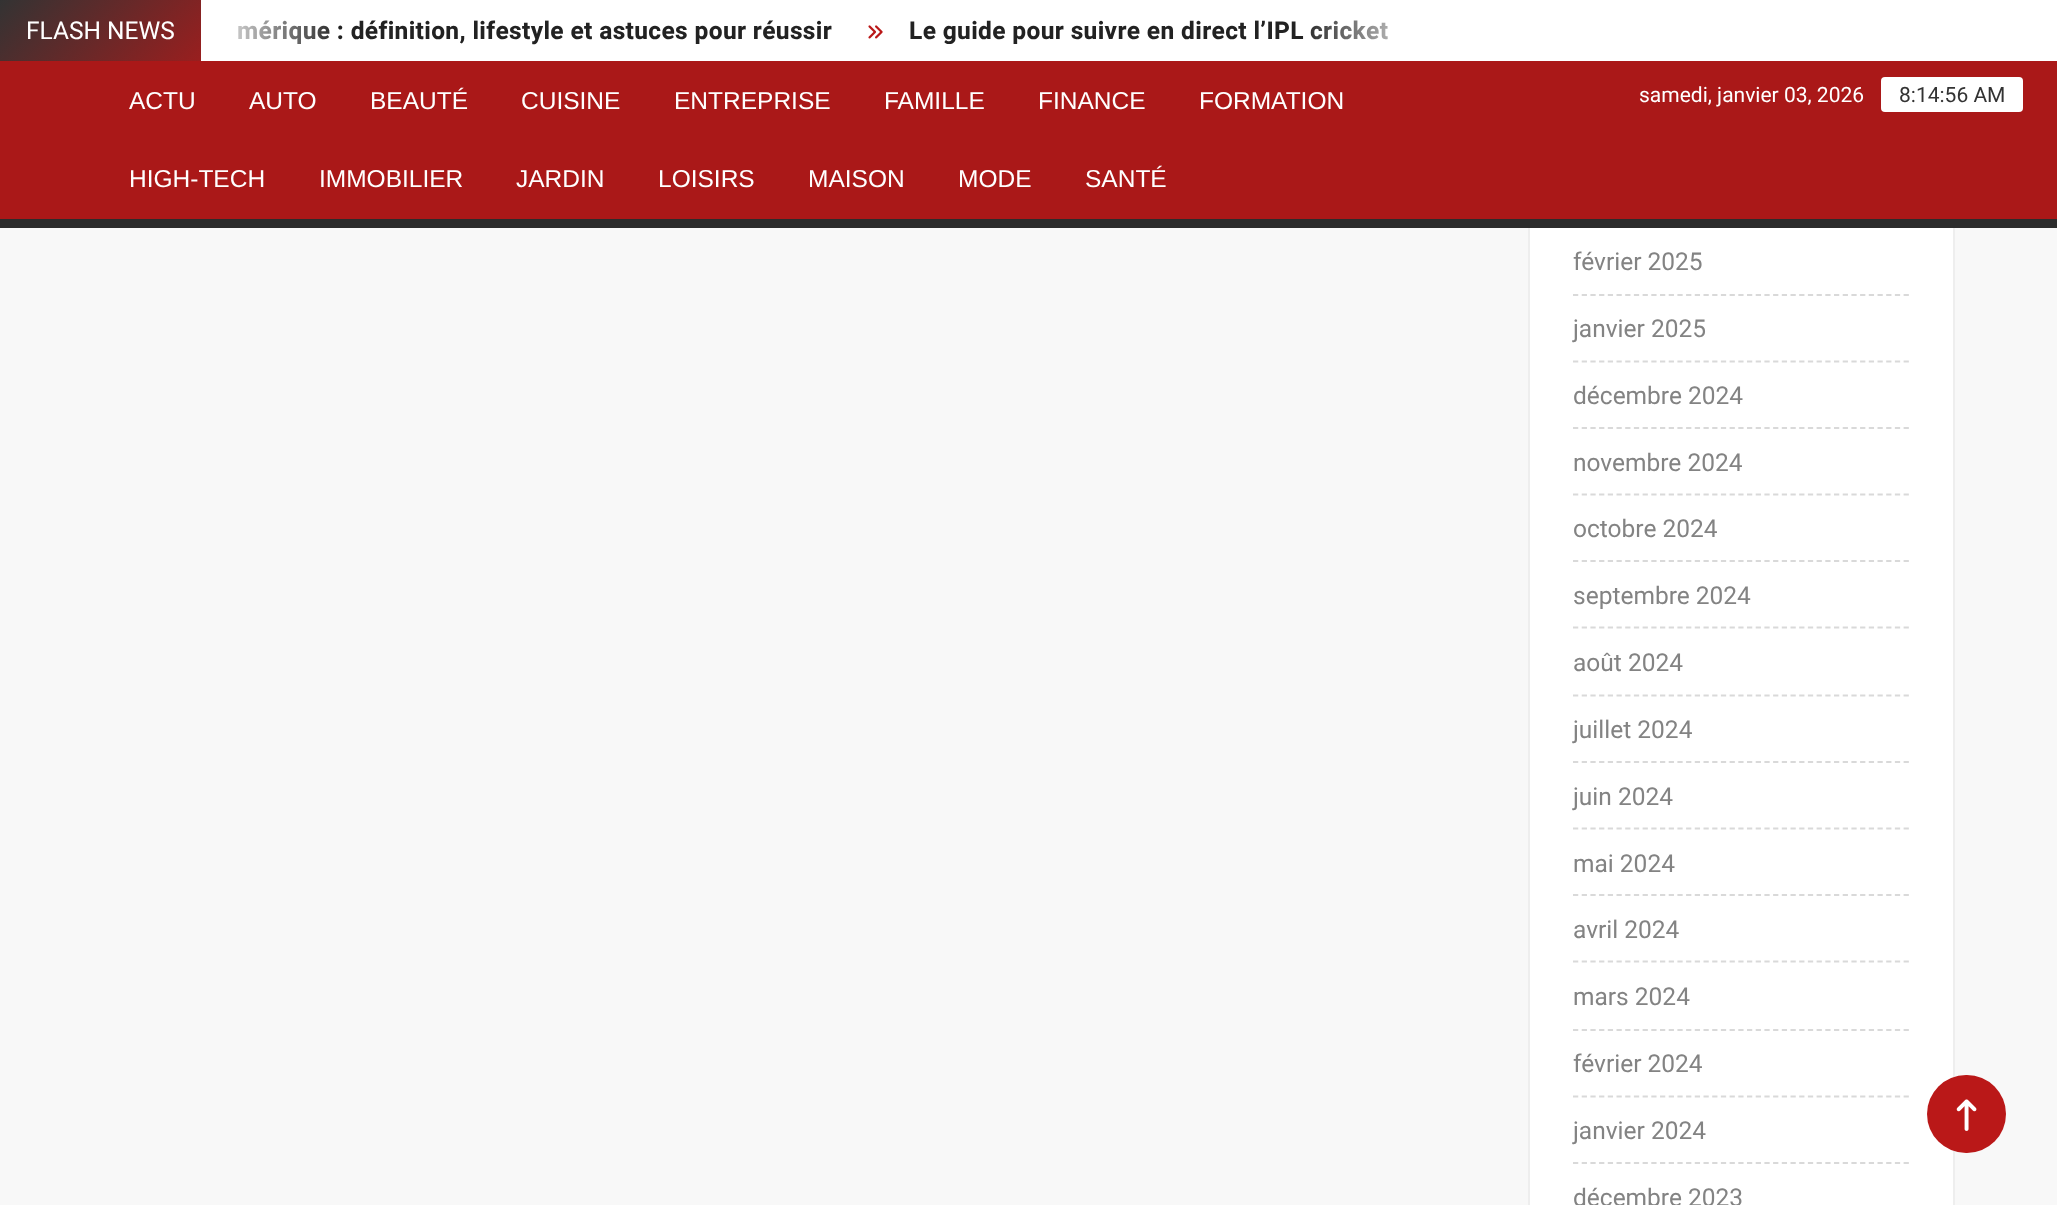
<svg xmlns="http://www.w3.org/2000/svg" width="2057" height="1205">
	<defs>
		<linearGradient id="g1" gradientUnits="userSpaceOnUse" x1="665" y1="385" x2="140" y2="-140"><stop offset="0" stop-color="#BA1818" /><stop offset="0.33" stop-color="#EEEEEE" /><stop offset="0.67" stop-color="#BA1818" /><stop offset="1" stop-color="#333333" /></linearGradient>
		<linearGradient id="g2" gradientUnits="userSpaceOnUse" x1="201" y1="31" x2="341" y2="31"><stop offset="0" stop-color="#FFFFFF" /><stop offset="1" stop-color="#FFFFFF" stop-opacity="0" /></linearGradient>
		<linearGradient id="g3" gradientUnits="userSpaceOnUse" x1="1300" y1="31" x2="1440" y2="31"><stop offset="0" stop-color="#FFFFFF" stop-opacity="0" /><stop offset="1" stop-color="#FFFFFF" /></linearGradient>
	</defs>
	<rect width="100%" height="100%" fill="#F8F8F8" />
	<rect x="1530" y="228" width="423" height="977" fill="#FFFFFF" />
	<rect x="1529" y="-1" width="425" height="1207" fill="none" stroke="#EEEEEE" stroke-width="2" />
	<rect x="202" y="0" width="1855" height="61" fill="#FFFFFF" />
	<text x="237" y="39" font-family="Heebo" font-size="24.5" font-weight="700" letter-spacing="0.35" fill="#222222">mérique : définition, lifestyle et astuces pour réussir</text>
	<image x="868" y="25" width="15" height="14" href="assets/img1.png" />
	<text x="909" y="39" font-family="Heebo" font-size="24.5" font-weight="700" letter-spacing="0.35" fill="#222222">Le guide pour suivre en direct l’IPL cricket</text>
	<rect x="0" y="0" width="201" height="61" fill="url(#g1)" />
	<text x="26" y="39" font-family="Heebo" font-size="24.5" fill="#FFFFFF">FLASH NEWS</text>
	<rect x="201" y="0" width="129" height="61" fill="url(#g2)" />
	<rect x="1311" y="20" width="77" height="20" fill="url(#g3)" />
	<rect x="0" y="61" width="2057" height="158" fill="#AA1818" />
	<rect x="0" y="219" width="2057" height="9" fill="#2C2C2C" />
	<g font-family="Arimo" font-size="24.5" fill="#FFFFFF">
		<text x="129" y="109">ACTU</text>
		<text x="249" y="109">AUTO</text>
		<text x="370" y="109">BEAUTÉ</text>
		<text x="521" y="109">CUISINE</text>
		<text x="674" y="109">ENTREPRISE</text>
		<text x="884" y="109">FAMILLE</text>
		<text x="1038" y="109">FINANCE</text>
		<text x="1199" y="109">FORMATION</text>
		<text x="129" y="187">HIGH-TECH</text>
		<text x="319" y="187">IMMOBILIER</text>
		<text x="516" y="187">JARDIN</text>
		<text x="658" y="187">LOISIRS</text>
		<text x="808" y="187">MAISON</text>
		<text x="958" y="187">MODE</text>
		<text x="1085" y="187">SANTÉ</text>
	</g>
	<text x="1639" y="102" font-family="Roboto" font-size="21" fill="#FFFFFF">samedi, janvier 03, 2026</text>
	<rect x="1881" y="77" width="142" height="35" rx="4" fill="#FFFFFF" />
	<text x="1899" y="102" font-family="Roboto" font-size="21" fill="#333333">8:14:56 AM</text>
	<path d="M1573 295H1909" fill="none" stroke="#D9D9D9" stroke-width="1.8" stroke-dasharray="5.25 3.45" />
	<text x="1573" y="270" font-family="Roboto" font-size="24.5" fill="#838383">février 2025</text>
	<path d="M1573 361.5H1909" fill="none" stroke="#D9D9D9" stroke-width="1.8" stroke-dasharray="5.25 3.45" />
	<text x="1573" y="337" font-family="Roboto" font-size="24.5" fill="#838383">janvier 2025</text>
	<path d="M1573 428H1909" fill="none" stroke="#D9D9D9" stroke-width="1.8" stroke-dasharray="5.25 3.45" />
	<text x="1573" y="404" font-family="Roboto" font-size="24.5" fill="#838383">décembre 2024</text>
	<path d="M1573 494.5H1909" fill="none" stroke="#D9D9D9" stroke-width="1.8" stroke-dasharray="5.25 3.45" />
	<text x="1573" y="471" font-family="Roboto" font-size="24.5" fill="#838383">novembre 2024</text>
	<path d="M1573 561H1909" fill="none" stroke="#D9D9D9" stroke-width="1.8" stroke-dasharray="5.25 3.45" />
	<text x="1573" y="537" font-family="Roboto" font-size="24.5" fill="#838383">octobre 2024</text>
	<path d="M1573 627.5H1909" fill="none" stroke="#D9D9D9" stroke-width="1.8" stroke-dasharray="5.25 3.45" />
	<text x="1573" y="604" font-family="Roboto" font-size="24.5" fill="#838383">septembre 2024</text>
	<path d="M1573 695.5H1909" fill="none" stroke="#D9D9D9" stroke-width="1.8" stroke-dasharray="5.25 3.45" />
	<text x="1573" y="671" font-family="Roboto" font-size="24.5" fill="#838383">août 2024</text>
	<path d="M1573 762H1909" fill="none" stroke="#D9D9D9" stroke-width="1.8" stroke-dasharray="5.25 3.45" />
	<text x="1573" y="738" font-family="Roboto" font-size="24.5" fill="#838383">juillet 2024</text>
	<path d="M1573 828.5H1909" fill="none" stroke="#D9D9D9" stroke-width="1.8" stroke-dasharray="5.25 3.45" />
	<text x="1573" y="805" font-family="Roboto" font-size="24.5" fill="#838383">juin 2024</text>
	<path d="M1573 895H1909" fill="none" stroke="#D9D9D9" stroke-width="1.8" stroke-dasharray="5.25 3.45" />
	<text x="1573" y="872" font-family="Roboto" font-size="24.5" fill="#838383">mai 2024</text>
	<path d="M1573 961.5H1909" fill="none" stroke="#D9D9D9" stroke-width="1.8" stroke-dasharray="5.25 3.45" />
	<text x="1573" y="938" font-family="Roboto" font-size="24.5" fill="#838383">avril 2024</text>
	<path d="M1573 1030H1909" fill="none" stroke="#D9D9D9" stroke-width="1.8" stroke-dasharray="5.25 3.45" />
	<text x="1573" y="1005" font-family="Roboto" font-size="24.5" fill="#838383">mars 2024</text>
	<path d="M1573 1096.5H1909" fill="none" stroke="#D9D9D9" stroke-width="1.8" stroke-dasharray="5.25 3.45" />
	<text x="1573" y="1072" font-family="Roboto" font-size="24.5" fill="#838383">février 2024</text>
	<path d="M1573 1163H1909" fill="none" stroke="#D9D9D9" stroke-width="1.8" stroke-dasharray="5.25 3.45" />
	<g font-family="Roboto" font-size="24.5" fill="#838383">
		<text x="1573" y="1139">janvier 2024</text>
		<text x="1573" y="1206">décembre 2023</text>
	</g>
	<rect x="1927" y="1075" width="79" height="78" rx="39" fill="#BA1818" />
	<image x="1956" y="1099" width="21" height="32" href="assets/img2.png" />
</svg>
